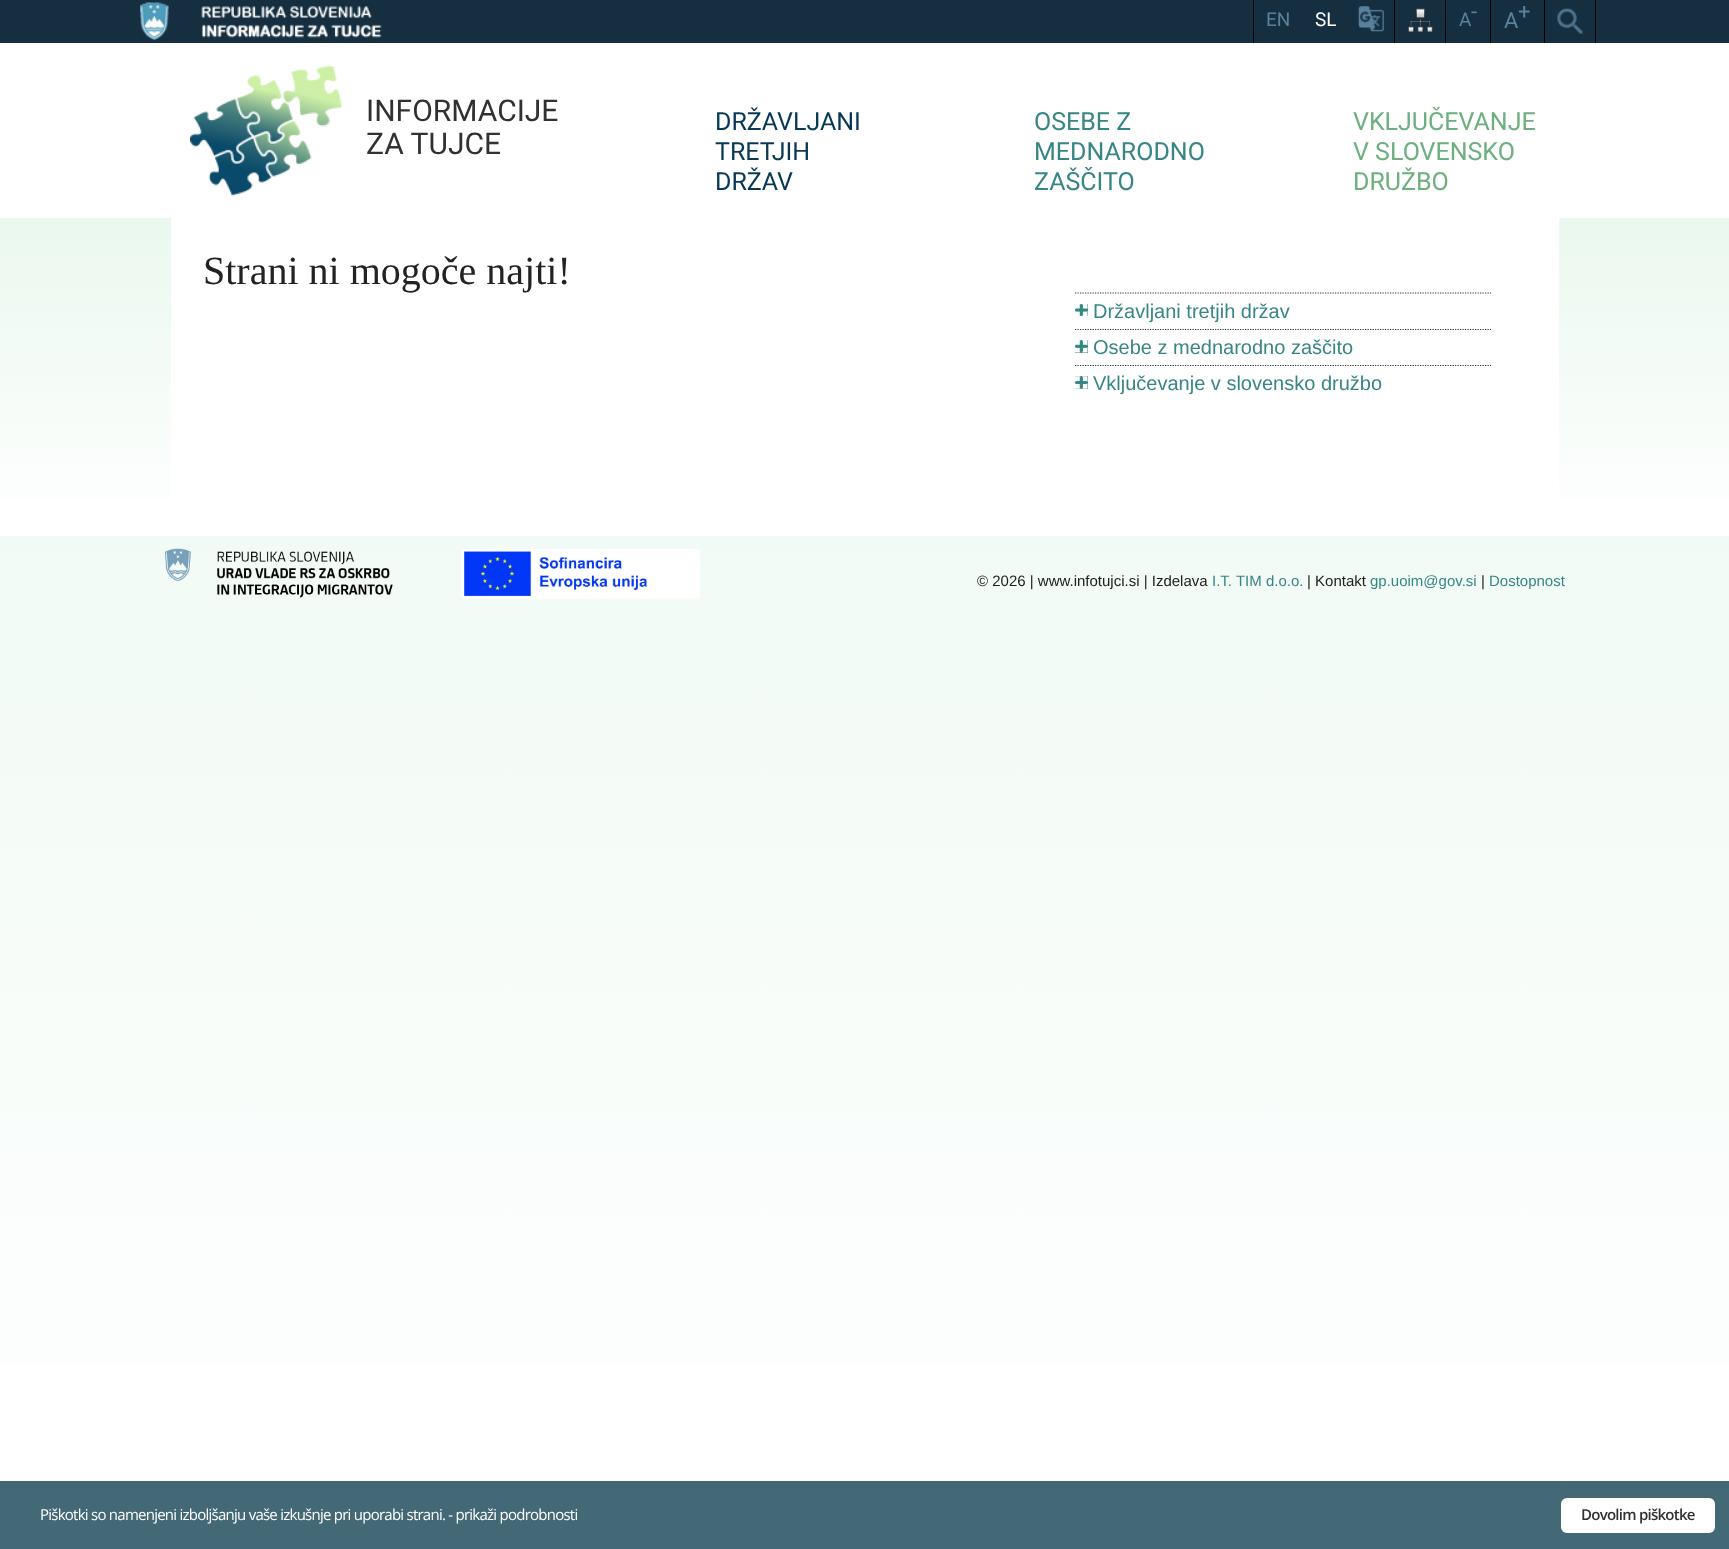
<svg xmlns="http://www.w3.org/2000/svg" width="1729" height="1549">
	<defs>
		<linearGradient id="g1" gradientUnits="userSpaceOnUse" x1="865" y1="0" x2="865" y2="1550"><stop offset="0" stop-color="#EAF8EF" /><stop offset="1" stop-color="#FFFFFF" /></linearGradient>
		<linearGradient id="g2" gradientUnits="userSpaceOnUse" x1="865" y1="217" x2="865" y2="536"><stop offset="0" stop-color="#EAF8EF" /><stop offset="1" stop-color="#FFFFFF" /></linearGradient>
	</defs>
	<rect width="100%" height="100%" fill="#FFFFFF" />
	<rect x="0" y="536" width="1729" height="829" fill="url(#g1)" />
	<rect x="0" y="0" width="1729" height="43" fill="#162F40" />
	<image x="140" y="2" width="242" height="38" href="assets/img1.png" />
	<rect x="1253" y="0" width="1" height="43" fill="#000000" />
	<text x="1266" y="26" font-family="Roboto" font-size="19" fill="#5A819C">EN</text>
	<text x="1315" y="26" font-family="Roboto" font-size="19" fill="#FFFFFF">SL</text>
	<rect x="1394" y="0" width="1" height="43" fill="#000000" />
	<image x="1358" y="6" width="26" height="26" href="assets/img2.png" />
	<rect x="1445" y="0" width="1" height="43" fill="#000000" />
	<image x="1408" y="8" width="25" height="25" href="assets/img3.png" />
	<rect x="1490" y="0" width="1" height="43" fill="#000000" />
	<text x="1459" y="26" font-family="Roboto" font-size="19" fill="#5A819C">A</text>
	<text x="1471" y="19" font-family="Roboto" font-size="22" fill="#5A819C">-</text>
	<rect x="1544" y="0" width="1" height="43" fill="#000000" />
	<g font-family="Roboto" font-size="22" fill="#5A819C">
		<text x="1504" y="28">A</text>
		<text x="1518" y="19">+</text>
	</g>
	<rect x="1595" y="0" width="1" height="43" fill="#000000" />
	<image x="1557" y="8" width="26" height="26" href="assets/img4.png" />
	<image x="190" y="66" width="152" height="130" href="assets/img5.png" />
	<g font-family="Roboto" font-size="30" fill="#313131">
		<text x="366" y="121">INFORMACIJE</text>
		<text x="366" y="154">ZA TUJCE</text>
	</g>
	<g font-family="Roboto" font-size="25" fill="#073854">
		<text x="715" y="130">DRŽAVLJANI</text>
		<text x="715" y="160">TRETJIH</text>
		<text x="715" y="190">DRŽAV</text>
	</g>
	<g font-family="Roboto" font-size="25" fill="#378685">
		<text x="1034" y="130">OSEBE Z</text>
		<text x="1034" y="160">MEDNARODNO</text>
		<text x="1034" y="190">ZAŠČITO</text>
	</g>
	<g font-family="Roboto" font-size="25" fill="#6DAF7E">
		<text x="1353" y="130">VKLJUČEVANJE</text>
		<text x="1353" y="160">V SLOVENSKO</text>
		<text x="1353" y="190">DRUŽBO</text>
	</g>
	<rect x="0" y="218" width="1729" height="280" fill="url(#g2)" />
	<rect x="171" y="218" width="1388" height="280" fill="#FFFFFF" />
	<text x="203" y="284" font-family="Liberation Serif" font-size="40" fill="#222222">Strani ni mogoče najti!</text>
	<path d="M1075 293H1491" fill="none" stroke="#343434" stroke-width="1.2" stroke-dasharray="1.25 1.25" />
	<rect x="1075" y="304" width="13" height="12" fill="#378685" />
	<image x="1075" y="304" width="13" height="12" href="assets/img6.png" />
	<text x="1093" y="318" font-family="Liberation Sans" font-size="20" fill="#378685">Državljani tretjih držav</text>
	<path d="M1075 329.5H1491" fill="none" stroke="#343434" stroke-width="1.2" stroke-dasharray="1.25 1.25" />
	<rect x="1075" y="340" width="13" height="13" fill="#378685" />
	<image x="1075" y="340" width="13" height="13" href="assets/img7.png" />
	<text x="1093" y="354" font-family="Liberation Sans" font-size="20" fill="#378685">Osebe z mednarodno zaščito</text>
	<path d="M1075 365.5H1491" fill="none" stroke="#343434" stroke-width="1.2" stroke-dasharray="1.25 1.25" />
	<rect x="1075" y="376" width="13" height="13" fill="#378685" />
	<image x="1075" y="376" width="13" height="13" href="assets/img8.png" />
	<text x="1093" y="390" font-family="Liberation Sans" font-size="20" fill="#378685">Vključevanje v slovensko družbo</text>
	<image x="165" y="548" width="228" height="50" href="assets/img9.png" />
	<image x="461" y="549" width="239" height="50" href="assets/img10.png" />
	<text x="977" y="586" font-family="Liberation Sans" font-size="15" fill="#222222">© 2026 | www.infotujci.si | Izdelava</text>
	<text x="1212" y="586" font-family="Liberation Sans" font-size="15" fill="#378685">I.T. TIM d.o.o.</text>
	<text x="1307" y="586" font-family="Liberation Sans" font-size="15" fill="#222222">| Kontakt</text>
	<text x="1370" y="586" font-family="Liberation Sans" font-size="15" fill="#378685">gp.uoim@gov.si</text>
	<text x="1481" y="586" font-family="Liberation Sans" font-size="15" fill="#222222">|</text>
	<text x="1489" y="586" font-family="Liberation Sans" font-size="15" fill="#378685">Dostopnost</text>
	<rect x="0" y="1481" width="1729" height="68" fill="#446976" />
	<path d="M0 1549.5H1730" fill="none" stroke="#CCCCCC" stroke-width="1.2" stroke-dasharray="1.25 1.25" />
	<text x="40" y="1520" font-family="Open Sans" font-size="15" letter-spacing="-0.75" fill="#FFFFFF">Piškotki so namenjeni izboljšanju vaše izkušnje pri uporabi strani. - prikaži podrobnosti</text>
	<rect x="1561" y="1498" width="154" height="35" rx="6" fill="#FFFFFF" />
	<text x="1581" y="1520" font-family="Open Sans" font-size="15" font-weight="600" letter-spacing="-0.75" fill="#313131">Dovolim piškotke</text>
</svg>
